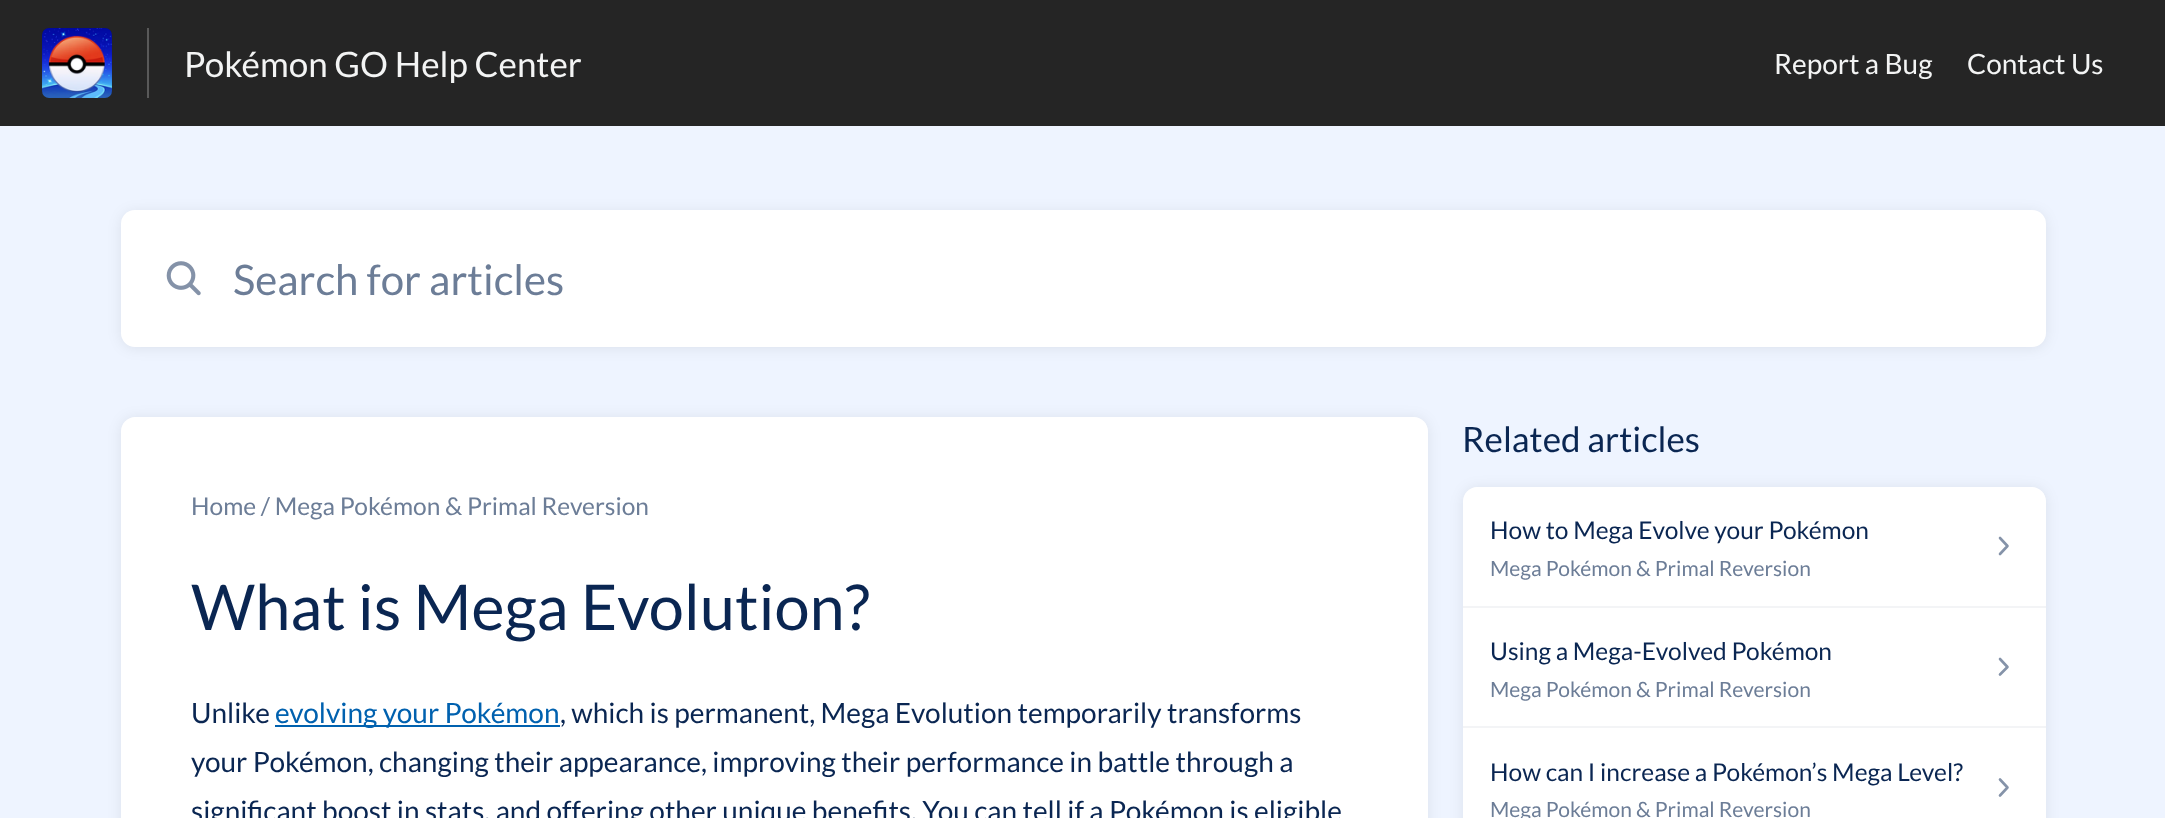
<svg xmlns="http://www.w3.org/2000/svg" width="2165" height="818">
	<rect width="100%" height="100%" fill="#EEF4FF" />
	<rect x="0" y="0" width="2165" height="126" fill="#252525" />
	<rect x="147" y="28" width="2" height="70" fill="#595959" />
	<image x="42" y="28" width="70" height="70" href="assets/img1.png" />
	<text x="184" y="77" font-family="Lato" font-size="35" fill="#F3F4F4">Pokémon GO Help Center</text>
	<g font-family="Lato" font-size="28" fill="#F3F4F4">
		<text x="1774" y="74">Report a Bug</text>
		<text x="1967" y="74">Contact Us</text>
	</g>
	<rect x="121" y="212" width="1925" height="136" rx="14" fill="#000000" fill-opacity="0.08" filter="blur(7px)" />
	<rect x="121" y="210" width="1925" height="137" rx="14" fill="#FFFFFF" />
	<image x="166" y="261" width="35" height="35" href="assets/img2.png" />
	<text x="233" y="295" font-family="Lato" font-size="42" fill="#6C7D97">Search for articles</text>
	<rect x="121" y="418" width="1307" height="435" rx="14" fill="#000000" fill-opacity="0.08" filter="blur(7px)" />
	<path d="M135 417H1414C1421.5 417 1428 423.5 1428 431V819H121V431C121 423.5 127.5 417 135 417Z" fill="#FFFFFF" />
	<text x="191" y="515" font-family="Lato" font-size="24.5" fill="#6C7D97">Home / Mega Pokémon &amp; Primal Reversion</text>
	<text x="191" y="630" font-family="Lato" font-size="63" fill="#0A2652">What is Mega Evolution?</text>
	<text x="191" y="723" font-family="Lato" font-size="28" fill="#0A2652">Unlike</text>
	<rect x="275" y="725" width="285" height="2" fill="#0061AF" />
	<text x="275" y="723" font-family="Lato" font-size="28" fill="#0061AF">evolving your Pokémon</text>
	<g font-family="Lato" font-size="28" fill="#0A2652">
		<text x="560" y="723">, which is permanent, Mega Evolution temporarily transforms</text>
		<text x="191" y="772">your Pokémon, changing their appearance, improving their performance in battle through a</text>
		<text x="191" y="821">significant boost in stats, and offering other unique benefits. You can tell if a Pokémon is eligible</text>
	</g>
	<text x="1462" y="452" font-family="Lato" font-size="35" fill="#0A2652">Related articles</text>
	<rect x="1463" y="488" width="583" height="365" rx="14" fill="#000000" fill-opacity="0.08" filter="blur(7px)" />
	<path d="M1477 487H2032C2039.5 487 2046 493.5 2046 501V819H1463V501C1463 493.5 1469.5 487 1477 487Z" fill="#FFFFFF" />
	<rect x="1463" y="606" width="583" height="2" fill="#F3F4F6" />
	<text x="1490" y="539" font-family="Lato" font-size="24.5" fill="#0A2652">How to Mega Evolve your Pokémon</text>
	<text x="1490" y="576" font-family="Lato" font-size="21" fill="#6C7D97">Mega Pokémon &amp; Primal Reversion</text>
	<path d="M2000 538L2007.5 546L2000 554" fill="none" stroke="#8593A9" stroke-width="2.6" stroke-linecap="round" stroke-linejoin="round" />
	<rect x="1463" y="726" width="583" height="2" fill="#F3F4F6" />
	<text x="1490" y="660" font-family="Lato" font-size="24.5" fill="#0A2652">Using a Mega-Evolved Pokémon</text>
	<text x="1490" y="697" font-family="Lato" font-size="21" fill="#6C7D97">Mega Pokémon &amp; Primal Reversion</text>
	<path d="M2000 659L2007.5 667L2000 674.5" fill="none" stroke="#8593A9" stroke-width="2.6" stroke-linecap="round" stroke-linejoin="round" />
	<text x="1490" y="781" font-family="Lato" font-size="24.5" fill="#0A2652">How can I increase a Pokémon’s Mega Level?</text>
	<text x="1490" y="817" font-family="Lato" font-size="21" fill="#6C7D97">Mega Pokémon &amp; Primal Reversion</text>
	<path d="M2000 779.5L2007.5 787.5L2000 795.5" fill="none" stroke="#8593A9" stroke-width="2.6" stroke-linecap="round" stroke-linejoin="round" />
</svg>
